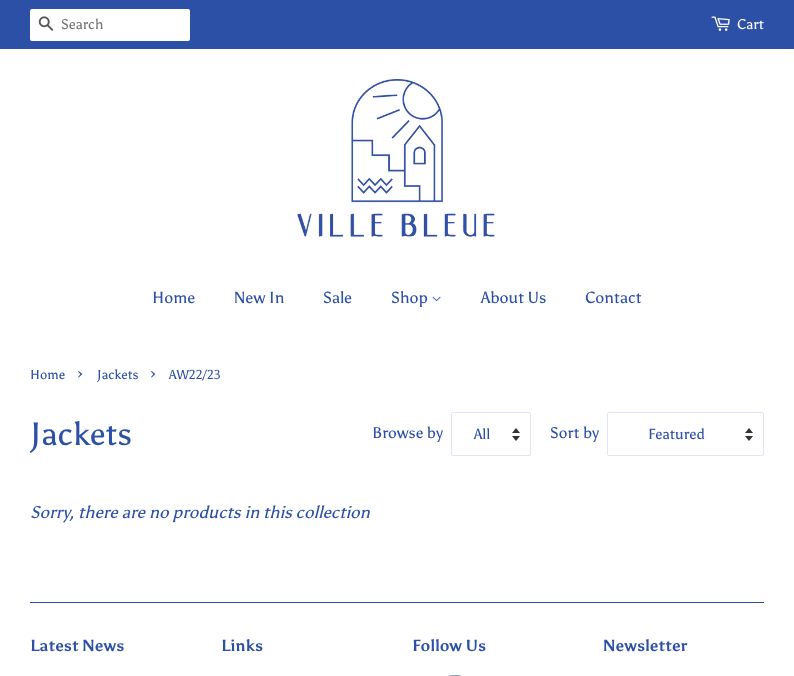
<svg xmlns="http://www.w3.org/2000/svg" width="794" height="676">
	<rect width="100%" height="100%" fill="#FFFFFF" />
	<rect x="0" y="0" width="794" height="49" fill="#2D50A7" />
	<rect x="30" y="9" width="160" height="32" rx="2" fill="#FFFFFF" />
	<image x="38" y="16" width="16" height="15" href="assets/img1.png" />
	<text x="61" y="29" font-family="Asul" font-size="14" fill="#757575">Search</text>
	<image x="711" y="16" width="19" height="15" href="assets/img2.png" />
	<text x="737" y="29" font-family="Asul" font-size="14" fill="#FFFFFF">Cart</text>
	<image x="297" y="79" width="198" height="158" href="assets/img3.png" />
	<g font-family="Asul" font-size="16" fill="#2D50A7">
		<text x="152" y="303">Home</text>
		<text x="234" y="303">New In</text>
		<text x="323" y="303">Sale</text>
		<text x="391" y="303">Shop</text>
	</g>
	<image x="432" y="296" width="9" height="6" href="assets/img4.png" />
	<g font-family="Asul" font-size="16" fill="#2D50A7">
		<text x="481" y="303">About Us</text>
		<text x="585" y="303">Contact</text>
	</g>
	<text x="30" y="379" font-family="Asul" font-size="13" fill="#2D50A7">Home</text>
	<text x="77" y="379" font-family="Asul" font-size="18" fill="#2D50A7">›</text>
	<text x="97" y="379" font-family="Asul" font-size="13" fill="#2D50A7">Jackets</text>
	<text x="150" y="379" font-family="Asul" font-size="18" fill="#2D50A7">›</text>
	<text x="169" y="379" font-family="Asul" font-size="13" fill="#2D50A7">AW22/23</text>
	<text x="30" y="445" font-family="Asul" font-size="32" fill="#2D50A7">Jackets</text>
	<text x="372" y="438" font-family="Asul" font-size="15.5" fill="#2D50A7">Browse by</text>
	<image x="512" y="428" width="8" height="13" href="assets/img5.png" />
	<rect x="451.5" y="412.5" width="79" height="43" rx="1.5" fill="none" stroke="#E0E5F2" />
	<text x="474" y="439" font-family="Asul" font-size="14.5" fill="#2D50A7">All</text>
	<text x="550" y="438" font-family="Asul" font-size="15.5" fill="#2D50A7">Sort by</text>
	<image x="745" y="428" width="8" height="13" href="assets/img5.png" />
	<rect x="607.5" y="412.5" width="156" height="43" rx="1.5" fill="none" stroke="#E0E5F2" />
	<text x="648" y="439" font-family="Asul" font-size="14.5" fill="#2D50A7">Featured</text>
	<text x="30" y="518" font-family="Asul" font-size="17" font-style="italic" fill="#2D50A7">Sorry, there are no products in this collection</text>
	<rect x="30" y="602" width="734" height="1" fill="#2D50A7" />
	<g font-family="Asul" font-size="16" font-weight="700" fill="#2D50A7">
		<text x="30" y="651">Latest News</text>
		<text x="221" y="651">Links</text>
		<text x="412" y="651">Follow Us</text>
	</g>
	<image x="448" y="675" width="14" height="1" href="assets/img6.png" />
	<text x="603" y="651" font-family="Asul" font-size="16" font-weight="700" fill="#2D50A7">Newsletter</text>
</svg>
